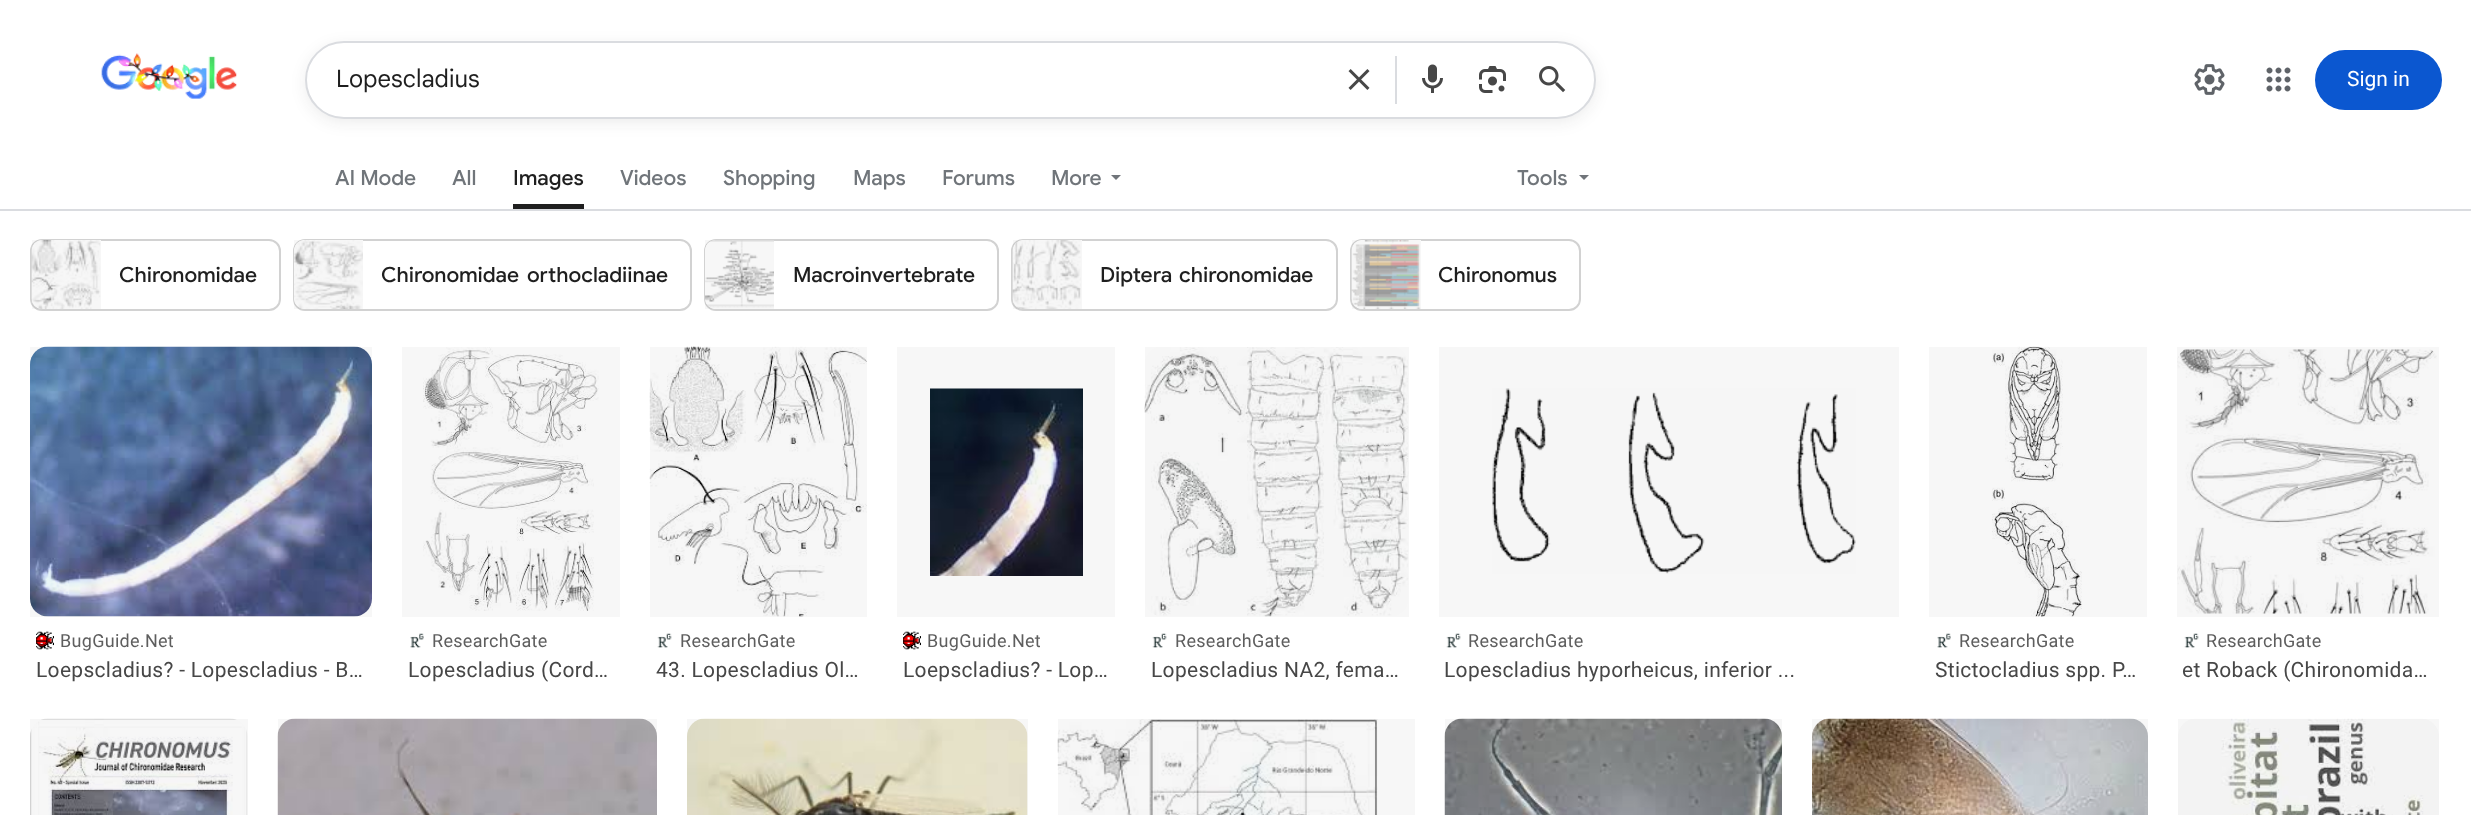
<svg xmlns="http://www.w3.org/2000/svg" width="2471" height="815">
	<rect width="100%" height="100%" fill="#FFFFFF" />
	<image x="101" y="53" width="136" height="46" href="assets/img1.png" />
	<rect x="305" y="45" width="1291" height="78" rx="39" fill="#1F1F1F" fill-opacity="0.08" filter="blur(7.5px)" />
	<rect x="306" y="42" width="1289" height="76" rx="38" fill="#FFFFFF" stroke="#DADCE0" stroke-width="2" />
	<text x="336" y="87" font-family="Google Sans" font-size="24" fill="#1F1F1F">Lopescladius</text>
	<image x="1348" y="69" width="22" height="21" href="assets/img2.png" />
	<rect x="1395" y="56" width="2" height="48" fill="#DADCE0" />
	<image x="1422" y="64" width="21" height="29" href="assets/img3.png" />
	<image x="1479" y="66" width="27" height="27" href="assets/img4.png" />
	<image x="1539" y="66" width="27" height="27" href="assets/img5.png" />
	<image x="2194" y="64" width="31" height="31" href="assets/img6.png" />
	<image x="2266" y="67" width="25" height="25" href="assets/img7.png" />
	<rect x="2315" y="50" width="127" height="60" rx="30" fill="#0B57D0" />
	<text x="2347" y="86" font-family="Roboto" font-size="21" fill="#FFFFFF">Sign in</text>
	<g font-family="Google Sans" font-size="21" font-weight="500" fill="#70757A">
		<text x="335" y="185">AI Mode</text>
		<text x="452" y="185">All</text>
	</g>
	<rect x="513" y="204" width="71" height="5" fill="#1F1F1F" />
	<text x="513" y="185" font-family="Google Sans" font-size="21" font-weight="500" fill="#1F1F1F">Images</text>
	<g font-family="Google Sans" font-size="21" font-weight="500" fill="#70757A">
		<text x="620" y="185">Videos</text>
		<text x="723" y="185">Shopping</text>
		<text x="853" y="185">Maps</text>
		<text x="942" y="185">Forums</text>
		<text x="1051" y="185">More</text>
	</g>
	<path d="M1111 175L1116 180L1121 175Z" fill="#70757A" />
	<text x="1517" y="185" font-family="Google Sans" font-size="21" font-weight="500" fill="#70757A">Tools</text>
	<path d="M1579 175L1584 180L1589 175Z" fill="#70757A" />
	<rect x="0" y="209" width="2471" height="2" fill="#DADCE0" />
	<rect x="31" y="240" width="249" height="70" rx="11" fill="none" stroke="#D2D2D2" stroke-width="2" />
	<path d="M43 240H101V309H43C37 309 32 304 32 298V251C32 245 37 240 43 240Z" fill="#FFFFFF" />
	<image x="31" y="240" width="70" height="69" href="assets/img8.png" />
	<rect x="32" y="240" width="69" height="69" fill="#000000" fill-opacity="0.03" />
	<text x="119" y="282" font-family="Google Sans" font-size="21" font-weight="500" fill="#1F1F1F">Chironomidae</text>
	<rect x="294" y="240" width="397" height="70" rx="11" fill="none" stroke="#D2D2D2" stroke-width="2" />
	<path d="M305 240H363V309H305C299 309 294 304 294 298V251C294 245 299 240 305 240Z" fill="#FFFFFF" />
	<image x="294" y="240" width="69" height="69" href="assets/img9.png" />
	<rect x="294" y="240" width="69" height="69" fill="#000000" fill-opacity="0.03" />
	<text x="381" y="282" word-spacing="3" font-family="Google Sans" font-size="21" font-weight="500" fill="#1F1F1F">Chironomidae orthocladiinae</text>
	<rect x="705" y="240" width="293" height="70" rx="11" fill="none" stroke="#D2D2D2" stroke-width="2" />
	<path d="M716 240H774V309H716C710 309 705 304 705 298V251C705 245 710 240 716 240Z" fill="#FFFFFF" />
	<image x="705" y="240" width="69" height="69" href="assets/img10.png" />
	<rect x="705" y="240" width="69" height="69" fill="#000000" fill-opacity="0.03" />
	<text x="793" y="282" font-family="Google Sans" font-size="21" font-weight="500" fill="#1F1F1F">Macroinvertebrate</text>
	<rect x="1012" y="240" width="325" height="70" rx="11" fill="none" stroke="#D2D2D2" stroke-width="2" />
	<path d="M1024 240H1082V309H1024C1018 309 1013 304 1013 298V251C1013 245 1018 240 1024 240Z" fill="#FFFFFF" />
	<image x="1012" y="240" width="69" height="69" href="assets/img11.png" />
	<rect x="1013" y="240" width="69" height="69" fill="#000000" fill-opacity="0.03" />
	<text x="1100" y="282" word-spacing="2" font-family="Google Sans" font-size="21" font-weight="500" fill="#1F1F1F">Diptera chironomidae</text>
	<rect x="1351" y="240" width="229" height="70" rx="11" fill="none" stroke="#D2D2D2" stroke-width="2" />
	<path d="M1363 240H1421V309H1363C1357 309 1352 304 1352 298V251C1352 245 1357 240 1363 240Z" fill="#FFFFFF" />
	<image x="1351" y="240" width="70" height="69" href="assets/img12.png" />
	<rect x="1352" y="240" width="69" height="69" fill="#000000" fill-opacity="0.03" />
	<text x="1438" y="282" font-family="Google Sans" font-size="21" font-weight="500" fill="#1F1F1F">Chironomus</text>
	<image x="30" y="346" width="342" height="271" href="assets/img13.png" />
	<rect x="30" y="347" width="342" height="270" fill="#000000" fill-opacity="0.03" />
	<image x="36" y="631" width="18" height="19" href="assets/img14.png" />
	<text x="60" y="647" font-family="Roboto" font-size="18" letter-spacing="0.3" fill="#5E5E5E">BugGuide.Net</text>
	<text x="36" y="677" font-family="Roboto" font-size="21" letter-spacing="0.3" fill="#474747">Loepscladius? - Lopescladius - B…</text>
	<image x="423" y="347" width="176" height="264" href="assets/img15.png" />
	<rect x="402" y="347" width="218" height="270" fill="#000000" fill-opacity="0.03" />
	<image x="410" y="633" width="14" height="15" href="assets/img16.png" />
	<text x="432" y="647" font-family="Roboto" font-size="18" letter-spacing="0.3" fill="#5E5E5E">ResearchGate</text>
	<text x="408" y="677" font-family="Roboto" font-size="21" letter-spacing="0.3" fill="#474747">Lopescladius (Cord…</text>
	<image x="649" y="346" width="218" height="271" href="assets/img17.png" />
	<rect x="650" y="347" width="217" height="270" fill="#000000" fill-opacity="0.03" />
	<image x="657" y="633" width="15" height="15" href="assets/img18.png" />
	<text x="680" y="647" font-family="Roboto" font-size="18" letter-spacing="0.3" fill="#5E5E5E">ResearchGate</text>
	<text x="656" y="677" font-family="Roboto" font-size="21" letter-spacing="0.3" fill="#474747">43. Lopescladius Ol…</text>
	<image x="930" y="388" width="153" height="188" href="assets/img19.png" />
	<rect x="897" y="347" width="218" height="270" fill="#000000" fill-opacity="0.03" />
	<image x="903" y="631" width="18" height="19" href="assets/img20.png" />
	<text x="927" y="647" font-family="Roboto" font-size="18" letter-spacing="0.3" fill="#5E5E5E">BugGuide.Net</text>
	<text x="903" y="677" font-family="Roboto" font-size="21" letter-spacing="0.3" fill="#474747">Loepscladius? - Lop…</text>
	<image x="1144" y="347" width="265" height="270" href="assets/img21.png" />
	<rect x="1145" y="347" width="264" height="270" fill="#000000" fill-opacity="0.03" />
	<image x="1152" y="633" width="15" height="15" href="assets/img18.png" />
	<text x="1175" y="647" font-family="Roboto" font-size="18" letter-spacing="0.3" fill="#5E5E5E">ResearchGate</text>
	<text x="1151" y="677" font-family="Roboto" font-size="21" letter-spacing="0.3" fill="#474747">Lopescladius NA2, fema…</text>
	<image x="1492" y="388" width="364" height="186" href="assets/img22.png" />
	<rect x="1439" y="347" width="460" height="270" fill="#000000" fill-opacity="0.03" />
	<image x="1446" y="633" width="15" height="15" href="assets/img18.png" />
	<text x="1468" y="647" font-family="Roboto" font-size="18" letter-spacing="0.3" fill="#5E5E5E">ResearchGate</text>
	<text x="1444" y="677" font-family="Roboto" font-size="21" letter-spacing="0.3" fill="#474747">Lopescladius hyporheicus, inferior ...</text>
	<image x="1992" y="346" width="90" height="271" href="assets/img23.png" />
	<rect x="1929" y="347" width="218" height="270" fill="#000000" fill-opacity="0.03" />
	<image x="1937" y="633" width="14" height="15" href="assets/img24.png" />
	<text x="1959" y="647" font-family="Roboto" font-size="18" letter-spacing="0.3" fill="#5E5E5E">ResearchGate</text>
	<text x="1935" y="677" font-family="Roboto" font-size="21" letter-spacing="0.3" fill="#474747">Stictocladius spp. P…</text>
	<image x="2177" y="349" width="260" height="265" href="assets/img25.png" />
	<rect x="2177" y="347" width="262" height="270" fill="#000000" fill-opacity="0.03" />
	<image x="2184" y="633" width="15" height="15" href="assets/img18.png" />
	<text x="2206" y="647" font-family="Roboto" font-size="18" letter-spacing="0.3" fill="#5E5E5E">ResearchGate</text>
	<text x="2182" y="677" font-family="Roboto" font-size="21" letter-spacing="0.3" fill="#474747">et Roback (Chironomida…</text>
	<image x="30" y="718" width="218" height="97" href="assets/img26.png" />
	<rect x="30" y="719" width="218" height="96" fill="#000000" fill-opacity="0.03" />
	<image x="277" y="718" width="380" height="97" href="assets/img27.png" />
	<rect x="278" y="719" width="379" height="96" fill="#000000" fill-opacity="0.03" />
	<image x="687" y="718" width="341" height="97" href="assets/img28.png" />
	<rect x="687" y="719" width="341" height="96" fill="#000000" fill-opacity="0.03" />
	<image x="1057" y="719" width="321" height="96" href="assets/img29.png" />
	<rect x="1058" y="719" width="357" height="96" fill="#000000" fill-opacity="0.03" />
	<image x="1444" y="718" width="338" height="97" href="assets/img30.png" />
	<rect x="1445" y="719" width="337" height="96" fill="#000000" fill-opacity="0.03" />
	<image x="1812" y="718" width="336" height="97" href="assets/img31.png" />
	<rect x="1812" y="719" width="336" height="96" fill="#000000" fill-opacity="0.03" />
	<image x="2178" y="718" width="261" height="97" href="assets/img32.png" />
	<rect x="2178" y="719" width="261" height="96" fill="#000000" fill-opacity="0.03" />
</svg>
